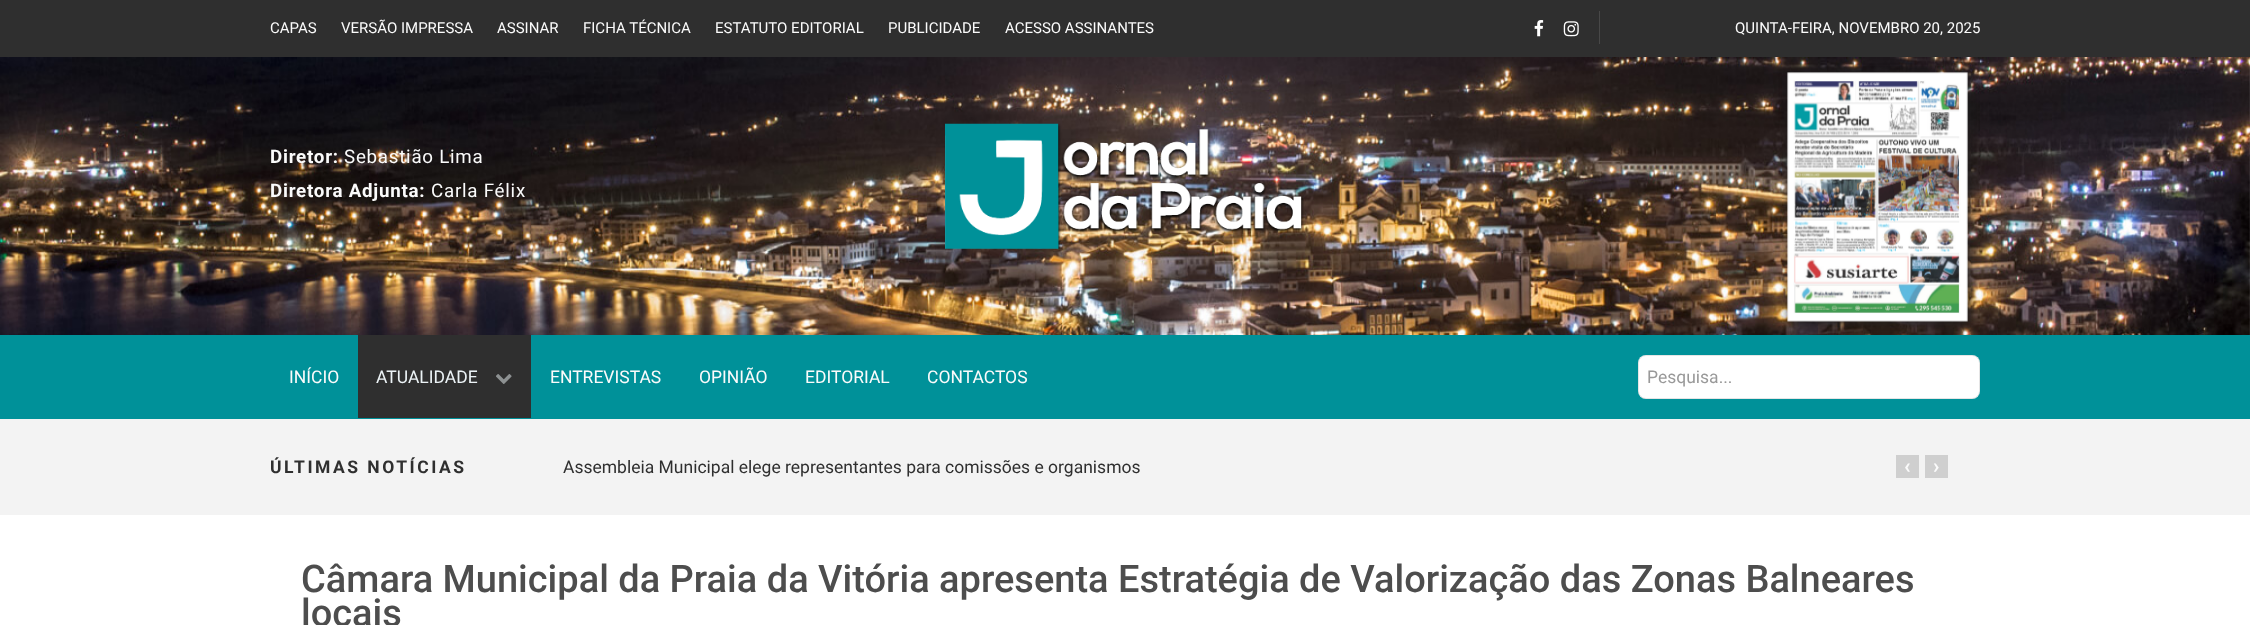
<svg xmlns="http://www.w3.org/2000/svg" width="2250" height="625">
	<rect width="100%" height="100%" fill="#FFFFFF" />
	<rect x="0" y="0" width="2250" height="58" fill="#2F2F2F" />
	<g font-family="Roboto" font-size="15" fill="#FBFBFB">
		<text x="270" y="33">CAPAS</text>
		<text x="341" y="33">VERSÃO IMPRESSA</text>
		<text x="497" y="33">ASSINAR</text>
		<text x="583" y="33">FICHA TÉCNICA</text>
		<text x="715" y="33">ESTATUTO EDITORIAL</text>
		<text x="888" y="33">PUBLICIDADE</text>
		<text x="1005" y="33">ACESSO ASSINANTES</text>
	</g>
	<image x="1534" y="20" width="10" height="17" href="assets/img1.png" />
	<image x="1563" y="21" width="16" height="16" href="assets/img2.png" />
	<rect x="1599" y="11" width="1" height="33" fill="#484848" />
	<text x="1735" y="33" font-family="Roboto" font-size="15" fill="#FBFBFB">QUINTA-FEIRA, NOVEMBRO 20, 2025</text>
	<image x="0" y="57" width="2250" height="278" href="assets/img3.png" />
	<text x="270" y="163" font-family="Roboto" font-size="18.75" font-weight="700" letter-spacing="0.75" fill="#FBFBFB">Diretor:</text>
	<text x="344" y="163" font-family="Roboto" font-size="18.75" letter-spacing="0.75" fill="#FBFBFB">Sebastião Lima</text>
	<text x="270" y="197" font-family="Roboto" font-size="18.75" font-weight="700" letter-spacing="0.75" fill="#FBFBFB">Diretora Adjunta:</text>
	<text x="431" y="197" font-family="Roboto" font-size="18.75" letter-spacing="0.75" fill="#FBFBFB">Carla Félix</text>
	<image x="945" y="123" width="359" height="126" href="assets/img4.png" />
	<rect x="1789" y="74" width="180" height="249" fill="#1C1C1C" filter="blur(5px)" />
	<image x="1787" y="72" width="181" height="250" href="assets/img5.png" />
	<rect x="0" y="335" width="2250" height="84" fill="#009199" />
	<text x="289" y="383" font-family="Roboto" font-size="17.5" fill="#FBFBFB">INÍCIO</text>
	<rect x="358" y="335" width="173" height="83" fill="#2F2F2F" />
	<text x="376" y="383" font-family="Roboto" font-size="17.5" fill="#ECF3F6">ATUALIDADE</text>
	<image x="496" y="374" width="16" height="10" href="assets/img6.png" />
	<g font-family="Roboto" font-size="17.5" fill="#FBFBFB">
		<text x="550" y="383">ENTREVISTAS</text>
		<text x="699" y="383">OPINIÃO</text>
		<text x="805" y="383">EDITORIAL</text>
		<text x="927" y="383">CONTACTOS</text>
	</g>
	<rect x="1638" y="355" width="342" height="44" rx="8" fill="#FFFFFF" />
	<rect x="1638.5" y="355.5" width="341" height="43" rx="7.5" fill="none" stroke="#000000" stroke-opacity="0.1" />
	<text x="1647" y="383" font-family="Roboto" font-size="17.5" fill="#999999">Pesquisa...</text>
	<rect x="0" y="419" width="2250" height="96" fill="#F3F3F3" />
	<text x="270" y="473" font-family="Roboto" font-size="17.5" font-weight="700" letter-spacing="2.5" fill="#2F2F2F">ÚLTIMAS NOTÍCIAS</text>
	<text x="563" y="473" font-family="Roboto" font-size="17.5" fill="#2F2F2F">Assembleia Municipal elege representantes para comissões e organismos</text>
	<rect x="1896" y="455" width="23" height="23" fill="#CFCFCF" />
	<text x="1904" y="473" font-family="Roboto" font-size="21" font-weight="700" fill="#FBFBFB">‹</text>
	<rect x="1925" y="455" width="23" height="23" fill="#CFCFCF" />
	<text x="1933" y="473" font-family="Roboto" font-size="21" font-weight="700" fill="#FBFBFB">›</text>
	<g font-family="Roboto" font-size="38" font-weight="500" fill="#4D4D4D">
		<text x="301" y="592">Câmara Municipal da Praia da Vitória apresenta Estratégia de Valorização das Zonas Balneares</text>
		<text x="301" y="626">locais</text>
	</g>
</svg>
